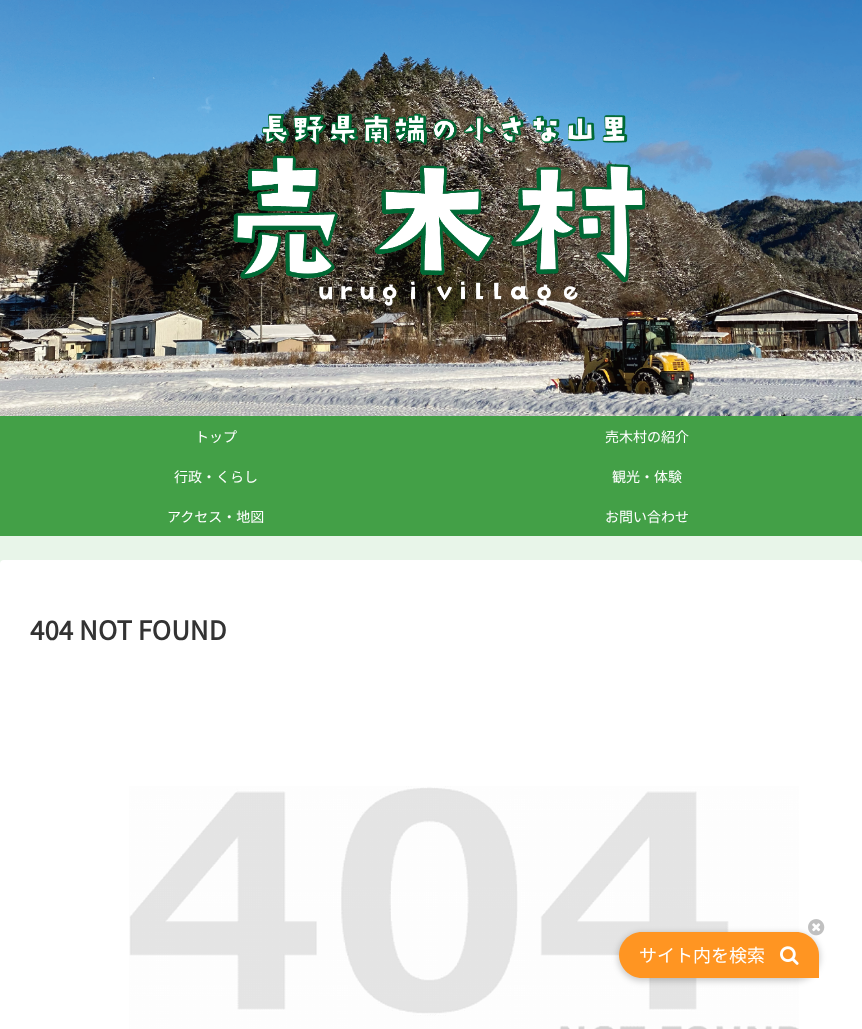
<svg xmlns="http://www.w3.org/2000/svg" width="862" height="1029">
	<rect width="100%" height="100%" fill="#E8F5E9" />
	<image x="0" y="0" width="862" height="416" href="assets/img1.png" />
	<image x="233" y="113" width="413" height="193" href="assets/img2.png" />
	<rect x="0" y="416" width="862" height="40" fill="#43A047" />
	<g font-family="Noto Sans JP" font-size="14" font-weight="100" fill="#FFFFFF">
		<text x="195" y="442">トップ</text>
		<text x="605" y="442">売木村の紹介</text>
	</g>
	<rect x="0" y="456" width="862" height="40" fill="#43A047" />
	<g font-family="Noto Sans JP" font-size="14" font-weight="100" fill="#FFFFFF">
		<text x="174" y="482">行政・くらし</text>
		<text x="612" y="482">観光・体験</text>
	</g>
	<rect x="0" y="496" width="862" height="40" fill="#43A047" />
	<g font-family="Noto Sans JP" font-size="14" font-weight="100" fill="#FFFFFF">
		<text x="167" y="522">アクセス・地図</text>
		<text x="605" y="522">お問い合わせ</text>
	</g>
	<rect x="0" y="560" width="862" height="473" rx="4" fill="#FFFFFF" />
	<text x="30" y="640" font-family="Noto Sans JP" font-size="26" font-weight="700" fill="#333333">404 NOT FOUND</text>
	<image x="129" y="786" width="670" height="243" href="assets/img3.png" />
	<rect x="618" y="933" width="202" height="48" rx="24" fill="#000000" fill-opacity="0.2" filter="blur(3px)" />
	<path d="M642 932H796C808.5 932 819 942.5 819 955V978H642C629.5 978 619 967.5 619 955C619 942.5 629.5 932 642 932Z" fill="#FF9522" />
	<image x="808" y="919" width="17" height="17" href="assets/img4.png" />
	<text x="639" y="962" font-family="Noto Sans JP" font-size="18" font-weight="100" fill="#FFFFFF">サイト内を検索</text>
	<image x="780" y="946" width="19" height="19" href="assets/img5.png" />
</svg>
